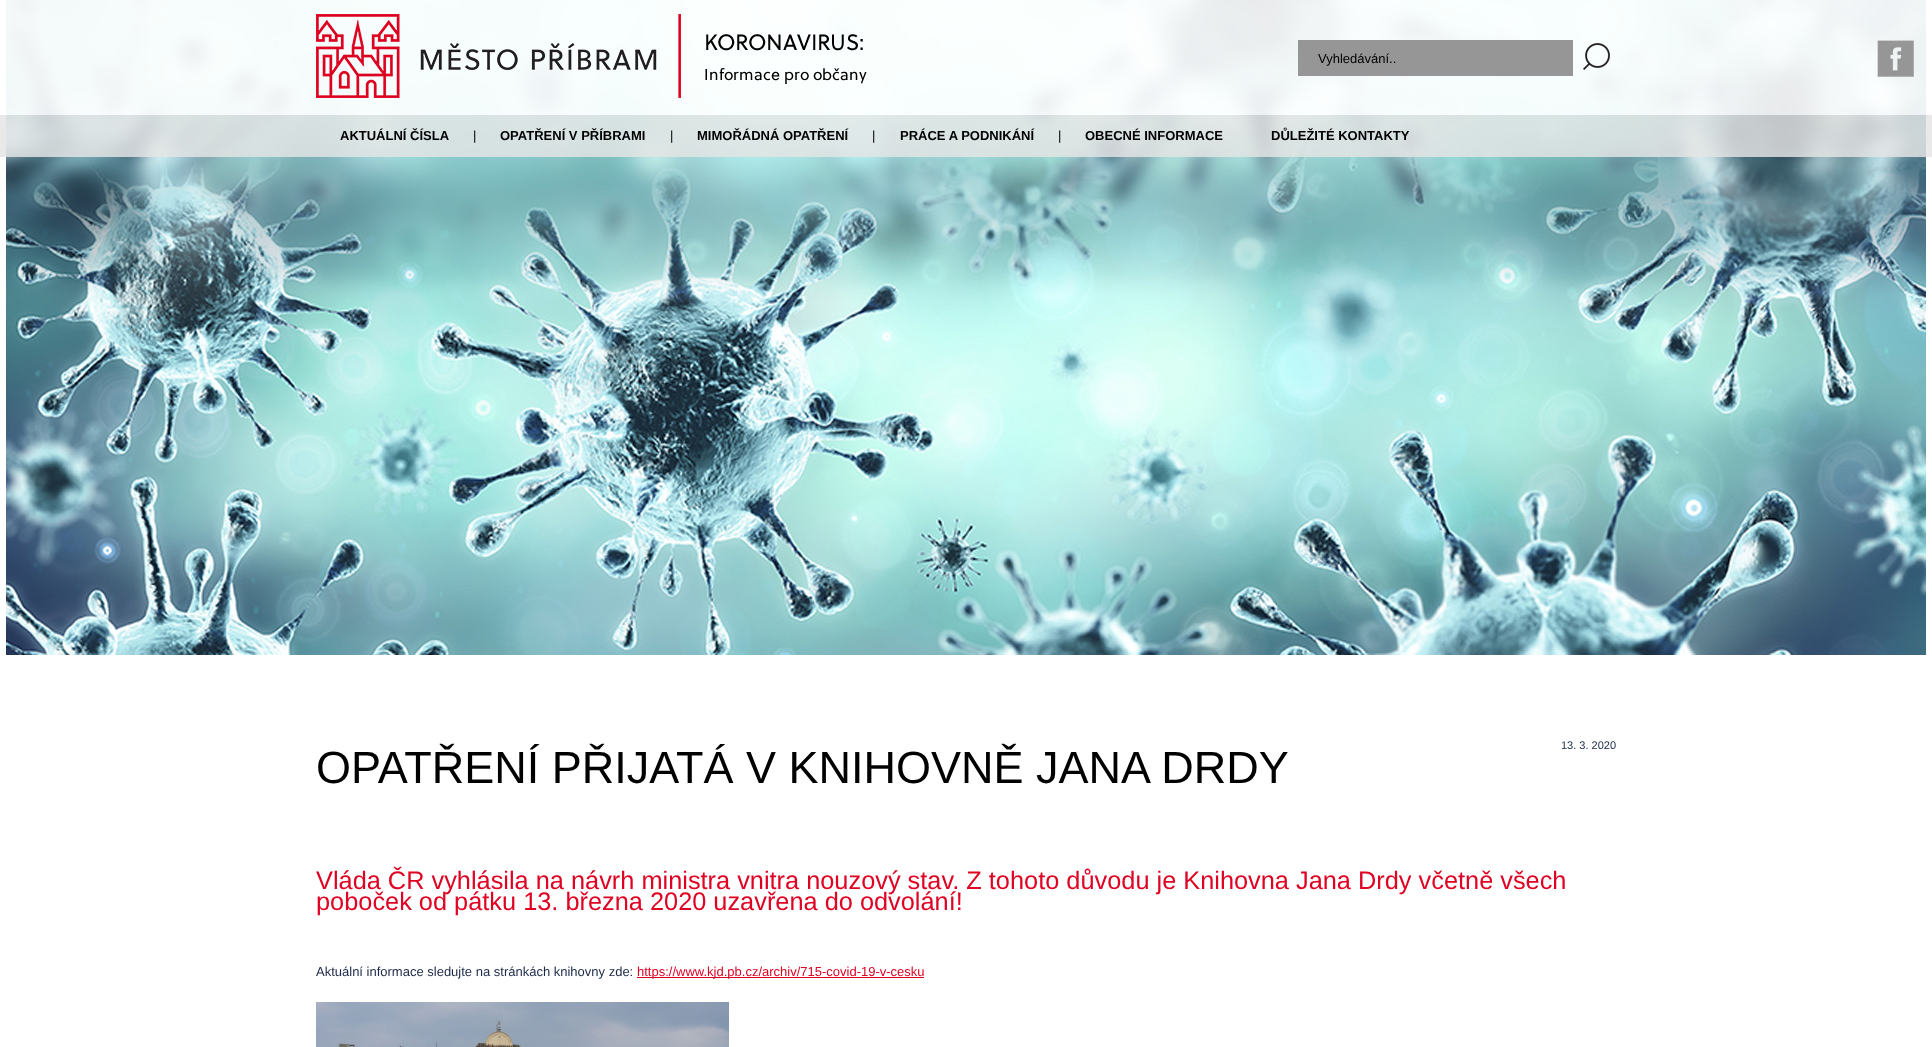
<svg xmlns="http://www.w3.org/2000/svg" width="1932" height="1047">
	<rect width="100%" height="100%" fill="#FFFFFF" />
	<image x="6" y="0" width="1920" height="655" href="assets/img1.png" />
	<rect x="6" y="0" width="1920" height="115" fill="#FFFFFF" fill-opacity="0.9" />
	<image x="316" y="14" width="551" height="84" href="assets/img2.png" />
	<rect x="1298" y="40" width="275" height="36" fill="#969696" />
	<text x="1318" y="63" font-family="Liberation Sans" font-size="13" fill="#000000">Vyhledávání..</text>
	<image x="1583" y="43" width="27" height="27" href="assets/img3.png" />
	<image x="1877" y="40" width="37" height="37" href="assets/img4.png" />
	<rect x="0" y="115" width="1932" height="42" fill="#E5E5E5" fill-opacity="0.83" />
	<text x="340" y="140" font-family="Liberation Sans" font-size="13" font-weight="700" fill="#000000">AKTUÁLNÍ ČÍSLA</text>
	<text x="473" y="140" font-family="Liberation Sans" font-size="13" fill="#000000">|</text>
	<text x="500" y="140" font-family="Liberation Sans" font-size="13" font-weight="700" fill="#000000">OPATŘENÍ V PŘÍBRAMI</text>
	<text x="670" y="140" font-family="Liberation Sans" font-size="13" fill="#000000">|</text>
	<text x="697" y="140" font-family="Liberation Sans" font-size="13" font-weight="700" fill="#000000">MIMOŘÁDNÁ OPATŘENÍ</text>
	<text x="872" y="140" font-family="Liberation Sans" font-size="13" fill="#000000">|</text>
	<text x="900" y="140" font-family="Liberation Sans" font-size="13" font-weight="700" fill="#000000">PRÁCE A PODNIKÁNÍ</text>
	<text x="1058" y="140" font-family="Liberation Sans" font-size="13" fill="#000000">|</text>
	<g font-family="Liberation Sans" font-size="13" font-weight="700" fill="#000000">
		<text x="1085" y="140">OBECNÉ INFORMACE</text>
		<text x="1271" y="140">DŮLEŽITÉ KONTAKTY</text>
	</g>
	<text x="316" y="783" font-family="Liberation Sans" font-size="45" fill="#000000">OPATŘENÍ PŘIJATÁ V KNIHOVNĚ JANA DRDY</text>
	<text x="1561" y="749" font-family="Liberation Sans" font-size="11" fill="#1B2949">13. 3. 2020</text>
	<g font-family="Liberation Sans" font-size="25.35" fill="#DF0223">
		<text x="316" y="889">Vláda ČR vyhlásila na návrh ministra vnitra nouzový stav. Z tohoto důvodu je Knihovna Jana Drdy včetně všech</text>
		<text x="316" y="910">poboček od pátku 13. března 2020 uzavřena do odvolání!</text>
	</g>
	<text x="316" y="976" font-family="Liberation Sans" font-size="13" fill="#1B2949">Aktuální informace sledujte na stránkách knihovny zde:</text>
	<rect x="637" y="977" width="287" height="1" fill="#DE0221" />
	<text x="637" y="976" font-family="Liberation Sans" font-size="13" fill="#DF0223">https://www.kjd.pb.cz/archiv/715-covid-19-v-cesku</text>
	<image x="316" y="1002" width="413" height="45" href="assets/img5.png" />
</svg>
